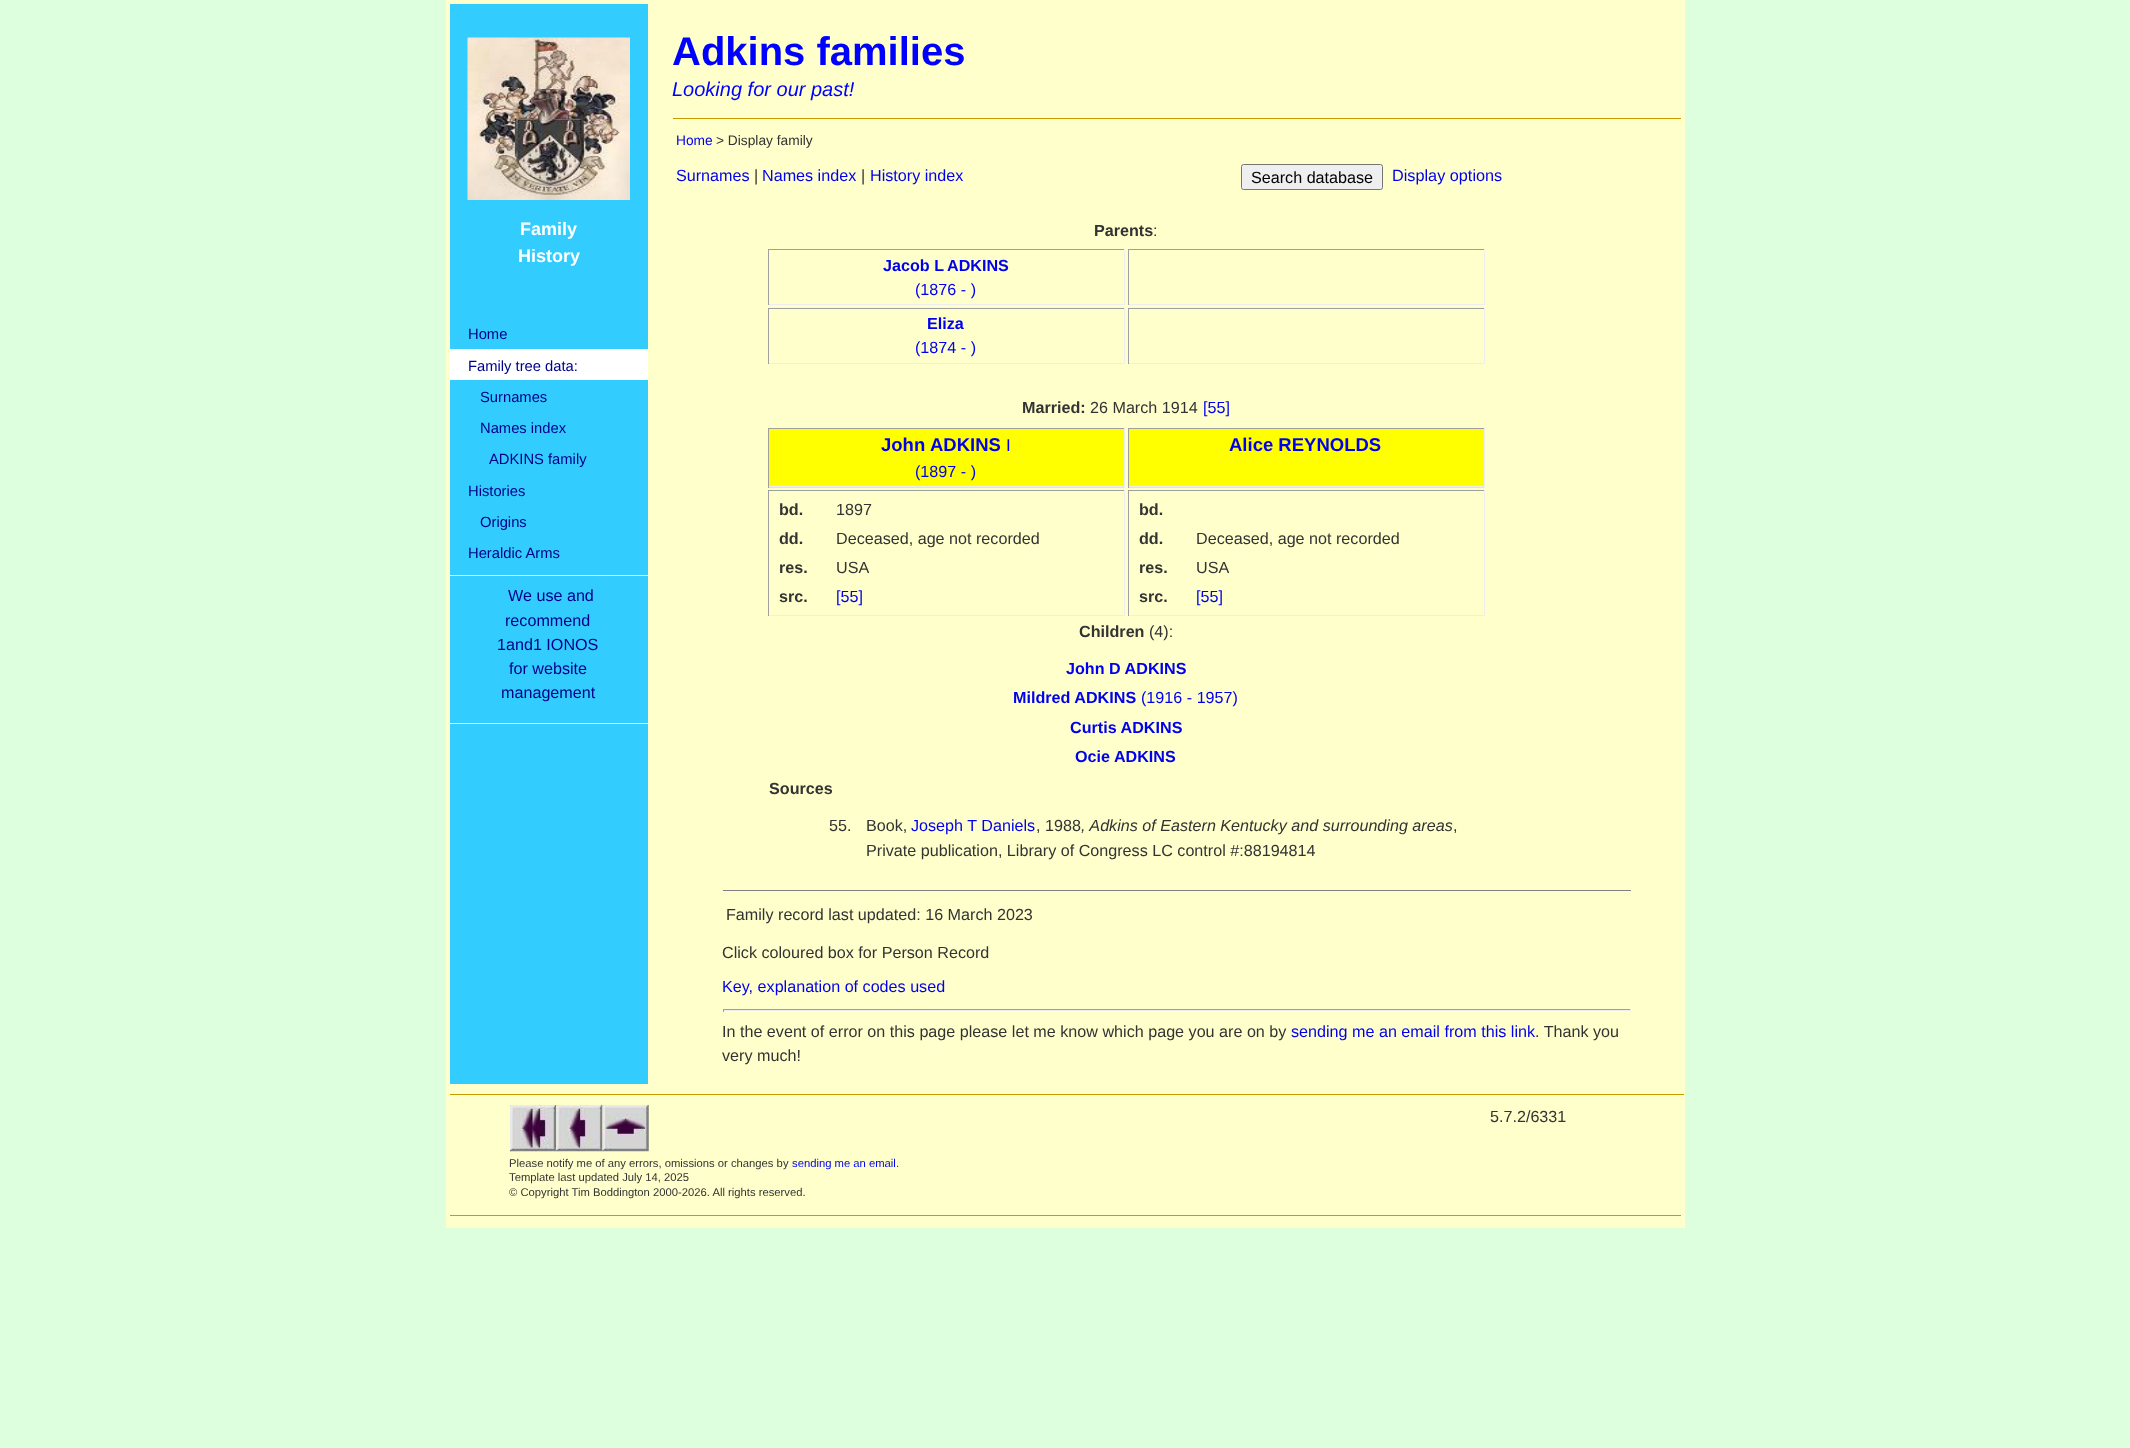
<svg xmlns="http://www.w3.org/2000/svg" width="2130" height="1448">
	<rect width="100%" height="100%" fill="#DDFFDD" />
	<rect x="446" y="0" width="1239" height="1228" fill="#FFFFCC" />
	<rect x="450" y="4" width="198" height="1080" fill="#33CCFF" />
	<image x="467" y="37" width="163" height="163" href="assets/img1.png" />
	<g font-family="Liberation Sans" font-size="18" font-weight="700" fill="#FFFFFF">
		<text x="520" y="235">Family</text>
		<text x="518" y="262">History</text>
	</g>
	<text x="468" y="339" font-family="Liberation Sans" font-size="14.75" fill="#00008B">Home</text>
	<rect x="450" y="349" width="198" height="31" fill="#FFFFFF" />
	<g font-family="Liberation Sans" font-size="14.75" fill="#00008B">
		<text x="468" y="371">Family tree data:</text>
		<text x="480" y="402">Surnames</text>
		<text x="480" y="433">Names index</text>
		<text x="489" y="464">ADKINS family</text>
		<text x="468" y="496">Histories</text>
		<text x="480" y="527">Origins</text>
		<text x="468" y="558">Heraldic Arms</text>
	</g>
	<rect x="450" y="575" width="198" height="1" fill="#FFFFCC" />
	<g font-family="Liberation Sans" font-size="16.15" fill="#00008B">
		<text x="508" y="601">We use and</text>
		<text x="505" y="626">recommend</text>
		<text x="497" y="650">1and1 IONOS</text>
		<text x="509" y="674">for website</text>
		<text x="501" y="698">management</text>
	</g>
	<rect x="450" y="723" width="198" height="1" fill="#FFFFCC" />
	<text x="672" y="65" font-family="Liberation Sans" font-size="40" font-weight="700" fill="#0000FF">Adkins families</text>
	<text x="672" y="96" font-family="Liberation Sans" font-size="20" font-style="italic" fill="#0000FF">Looking for our past!</text>
	<rect x="673" y="118" width="1008" height="1" fill="#CC9900" />
	<text x="676" y="145" font-family="Liberation Sans" font-size="13.75" fill="#0000EE">Home</text>
	<text x="716" y="145" font-family="Liberation Sans" font-size="13.75" fill="#333333">&gt; Display family</text>
	<text x="676" y="181" font-family="Liberation Sans" font-size="16.15" fill="#0000EE">Surnames</text>
	<text x="754" y="181" font-family="Liberation Sans" font-size="16.15" fill="#333333">|</text>
	<text x="762" y="181" font-family="Liberation Sans" font-size="16.15" fill="#0000EE">Names index</text>
	<text x="861" y="181" font-family="Liberation Sans" font-size="16.15" fill="#333333">|</text>
	<text x="870" y="181" font-family="Liberation Sans" font-size="16.15" fill="#0000EE">History index</text>
	<rect x="1241.5" y="164.5" width="141" height="25" rx="2" fill="#EFEFEF" stroke="#767676" />
	<text x="1251" y="183" font-family="Liberation Sans" font-size="16.15" fill="#000000">Search database</text>
	<text x="1392" y="181" font-family="Liberation Sans" font-size="16.25" fill="#0000EE">Display options</text>
	<text x="1094" y="236" font-family="Liberation Sans" font-size="16.15" font-weight="700" fill="#333333">Parents</text>
	<text x="1153" y="236" font-family="Liberation Sans" font-size="16.15" fill="#333333">:</text>
	<rect x="768" y="249" width="357" height="1" fill="#9F9F9F" />
	<rect x="1124" y="249" width="1" height="56" fill="#EEEEEE" />
	<rect x="768" y="304" width="357" height="1" fill="#EEEEEE" />
	<rect x="768" y="249" width="1" height="56" fill="#9F9F9F" />
	<g font-family="Liberation Sans" font-size="16.15" font-weight="700" fill="#0000EE">
		<text x="883" y="271">Jacob L</text>
		<text x="947" y="271">ADKINS</text>
	</g>
	<text x="915" y="295" font-family="Liberation Sans" font-size="16.15" fill="#0000EE">(1876 - )</text>
	<rect x="1128" y="249" width="357" height="1" fill="#9F9F9F" />
	<rect x="1484" y="249" width="1" height="56" fill="#EEEEEE" />
	<rect x="1128" y="304" width="357" height="1" fill="#EEEEEE" />
	<rect x="1128" y="249" width="1" height="56" fill="#9F9F9F" />
	<rect x="768" y="308" width="357" height="1" fill="#9F9F9F" />
	<rect x="1124" y="308" width="1" height="56" fill="#EEEEEE" />
	<rect x="768" y="363" width="357" height="1" fill="#EEEEEE" />
	<rect x="768" y="308" width="1" height="56" fill="#9F9F9F" />
	<text x="927" y="329" font-family="Liberation Sans" font-size="16.15" font-weight="700" fill="#0000EE">Eliza</text>
	<text x="915" y="353" font-family="Liberation Sans" font-size="16.15" fill="#0000EE">(1874 - )</text>
	<rect x="1128" y="308" width="357" height="1" fill="#9F9F9F" />
	<rect x="1484" y="308" width="1" height="56" fill="#EEEEEE" />
	<rect x="1128" y="363" width="357" height="1" fill="#EEEEEE" />
	<rect x="1128" y="308" width="1" height="56" fill="#9F9F9F" />
	<text x="1022" y="413" font-family="Liberation Sans" font-size="16.15" font-weight="700" fill="#333333">Married:</text>
	<text x="1090" y="413" font-family="Liberation Sans" font-size="16.15" fill="#333333">26 March 1914</text>
	<text x="1203" y="413" font-family="Liberation Sans" font-size="16.15" fill="#0000EE">[55]</text>
	<rect x="769" y="429" width="355" height="59" fill="#FFFF00" />
	<rect x="768" y="428" width="357" height="1" fill="#9F9F9F" />
	<rect x="1124" y="428" width="1" height="60" fill="#EEEEEE" />
	<rect x="768" y="486" width="357" height="1" fill="#EEEEEE" />
	<rect x="768" y="428" width="1" height="60" fill="#9F9F9F" />
	<g font-family="Liberation Sans" font-size="18.5" font-weight="700" fill="#0000EE">
		<text x="881" y="451">John</text>
		<text x="930" y="451">ADKINS</text>
	</g>
	<text x="1006" y="451" font-family="Liberation Sans" font-size="17" fill="#0000EE">I</text>
	<text x="915" y="477" font-family="Liberation Sans" font-size="16.15" fill="#0000EE">(1897 - )</text>
	<rect x="1129" y="429" width="355" height="59" fill="#FFFF00" />
	<rect x="1128" y="428" width="357" height="1" fill="#9F9F9F" />
	<rect x="1484" y="428" width="1" height="60" fill="#EEEEEE" />
	<rect x="1128" y="486" width="357" height="1" fill="#EEEEEE" />
	<rect x="1128" y="428" width="1" height="60" fill="#9F9F9F" />
	<text x="1229" y="451" font-family="Liberation Sans" font-size="18.5" font-weight="700" fill="#0000EE">Alice REYNOLDS</text>
	<rect x="768" y="490" width="357" height="1" fill="#9F9F9F" />
	<rect x="1124" y="490" width="1" height="126" fill="#EEEEEE" />
	<rect x="768" y="615" width="357" height="1" fill="#EEEEEE" />
	<rect x="768" y="490" width="1" height="126" fill="#9F9F9F" />
	<text x="779" y="515" font-family="Liberation Sans" font-size="16.15" font-weight="700" fill="#333333">bd.</text>
	<text x="836" y="515" font-family="Liberation Sans" font-size="16.15" fill="#333333">1897</text>
	<text x="779" y="544" font-family="Liberation Sans" font-size="16.15" font-weight="700" fill="#333333">dd.</text>
	<text x="836" y="544" font-family="Liberation Sans" font-size="16.15" fill="#333333">Deceased, age not recorded</text>
	<text x="779" y="573" font-family="Liberation Sans" font-size="16.15" font-weight="700" fill="#333333">res.</text>
	<text x="836" y="573" font-family="Liberation Sans" font-size="16.15" fill="#333333">USA</text>
	<text x="779" y="602" font-family="Liberation Sans" font-size="16.15" font-weight="700" fill="#333333">src.</text>
	<text x="836" y="602" font-family="Liberation Sans" font-size="16.15" fill="#0000EE">[55]</text>
	<rect x="1128" y="490" width="357" height="1" fill="#9F9F9F" />
	<rect x="1484" y="490" width="1" height="126" fill="#EEEEEE" />
	<rect x="1128" y="615" width="357" height="1" fill="#EEEEEE" />
	<rect x="1128" y="490" width="1" height="126" fill="#9F9F9F" />
	<g font-family="Liberation Sans" font-size="16.15" font-weight="700" fill="#333333">
		<text x="1139" y="515">bd.</text>
		<text x="1139" y="544">dd.</text>
	</g>
	<text x="1196" y="544" font-family="Liberation Sans" font-size="16.15" fill="#333333">Deceased, age not recorded</text>
	<text x="1139" y="573" font-family="Liberation Sans" font-size="16.15" font-weight="700" fill="#333333">res.</text>
	<text x="1196" y="573" font-family="Liberation Sans" font-size="16.15" fill="#333333">USA</text>
	<text x="1139" y="602" font-family="Liberation Sans" font-size="16.15" font-weight="700" fill="#333333">src.</text>
	<text x="1196" y="602" font-family="Liberation Sans" font-size="16.15" fill="#0000EE">[55]</text>
	<text x="1079" y="637" font-family="Liberation Sans" font-size="16.15" font-weight="700" fill="#333333">Children</text>
	<text x="1149" y="637" font-family="Liberation Sans" font-size="16.15" fill="#333333">(4):</text>
	<g font-family="Liberation Sans" font-size="16.15" font-weight="700" fill="#0000EE">
		<text x="1066" y="674">John D ADKINS</text>
		<text x="1013" y="703">Mildred ADKINS</text>
	</g>
	<text x="1141" y="703" font-family="Liberation Sans" font-size="16.15" fill="#0000EE">(1916 - 1957)</text>
	<g font-family="Liberation Sans" font-size="16.15" font-weight="700" fill="#0000EE">
		<text x="1070" y="733">Curtis ADKINS</text>
		<text x="1075" y="762">Ocie ADKINS</text>
	</g>
	<text x="769" y="794" font-family="Liberation Sans" font-size="16.15" font-weight="700" fill="#333333">Sources</text>
	<g font-family="Liberation Sans" font-size="16.15" fill="#333333">
		<text x="829" y="831">55.</text>
		<text x="866" y="831">Book,</text>
	</g>
	<text x="911" y="831" font-family="Liberation Sans" font-size="16.15" fill="#0000EE">Joseph T Daniels</text>
	<text x="1036" y="831" font-family="Liberation Sans" font-size="16.15" fill="#333333">, 1988</text>
	<text x="1081" y="831" font-family="Liberation Sans" font-size="16.15" font-style="italic" fill="#333333">, Adkins of Eastern Kentucky and surrounding areas</text>
	<g font-family="Liberation Sans" font-size="16.15" fill="#333333">
		<text x="1453" y="831">,</text>
		<text x="866" y="856">Private publication, Library of Congress LC control #:88194814</text>
	</g>
	<rect x="723" y="890" width="908" height="1" fill="#808080" />
	<g font-family="Liberation Sans" font-size="16.15" fill="#333333">
		<text x="726" y="920">Family record last updated: 16 March 2023</text>
		<text x="722" y="958">Click coloured box for Person Record</text>
	</g>
	<text x="722" y="992" font-family="Liberation Sans" font-size="16.15" fill="#0000EE">Key, explanation of codes used</text>
	<rect x="723" y="1009" width="908" height="1" fill="#9F9F9F" />
	<rect x="1630" y="1009" width="1" height="3" fill="#EEEEEE" />
	<rect x="723" y="1010" width="908" height="1" fill="#EEEEEE" />
	<rect x="723" y="1009" width="1" height="3" fill="#9F9F9F" />
	<text x="722" y="1037" font-family="Liberation Sans" font-size="16.15" fill="#333333">In the event of error on this page please let me know which page you are on by</text>
	<text x="1291" y="1037" font-family="Liberation Sans" font-size="16.15" fill="#0000EE">sending me an email from this link</text>
	<g font-family="Liberation Sans" font-size="16.15" fill="#333333">
		<text x="1535" y="1037">. Thank you</text>
		<text x="722" y="1061">very much!</text>
	</g>
	<rect x="450" y="1094" width="1234" height="1" fill="#CC9900" />
	<text x="1490" y="1122" font-family="Liberation Sans" font-size="16.15" fill="#333333">5.7.2/6331</text>
	<image x="510" y="1105" width="47" height="47" href="assets/img2.png" />
	<image x="556" y="1105" width="47" height="47" href="assets/img3.png" />
	<image x="602" y="1105" width="47" height="47" href="assets/img4.png" />
	<text x="509" y="1167" font-family="Liberation Sans" font-size="11.25" fill="#333333">Please notify me of any errors, omissions or changes by</text>
	<text x="792" y="1167" font-family="Liberation Sans" font-size="11.25" fill="#0000EE">sending me an email</text>
	<g font-family="Liberation Sans" font-size="11.25" fill="#333333">
		<text x="896" y="1167">.</text>
		<text x="509" y="1181">Template last updated July 14, 2025</text>
		<text x="509" y="1196">© Copyright Tim Boddington 2000-2026. All rights reserved.</text>
	</g>
	<rect x="450" y="1215" width="1231" height="1" fill="#CC9900" />
</svg>
